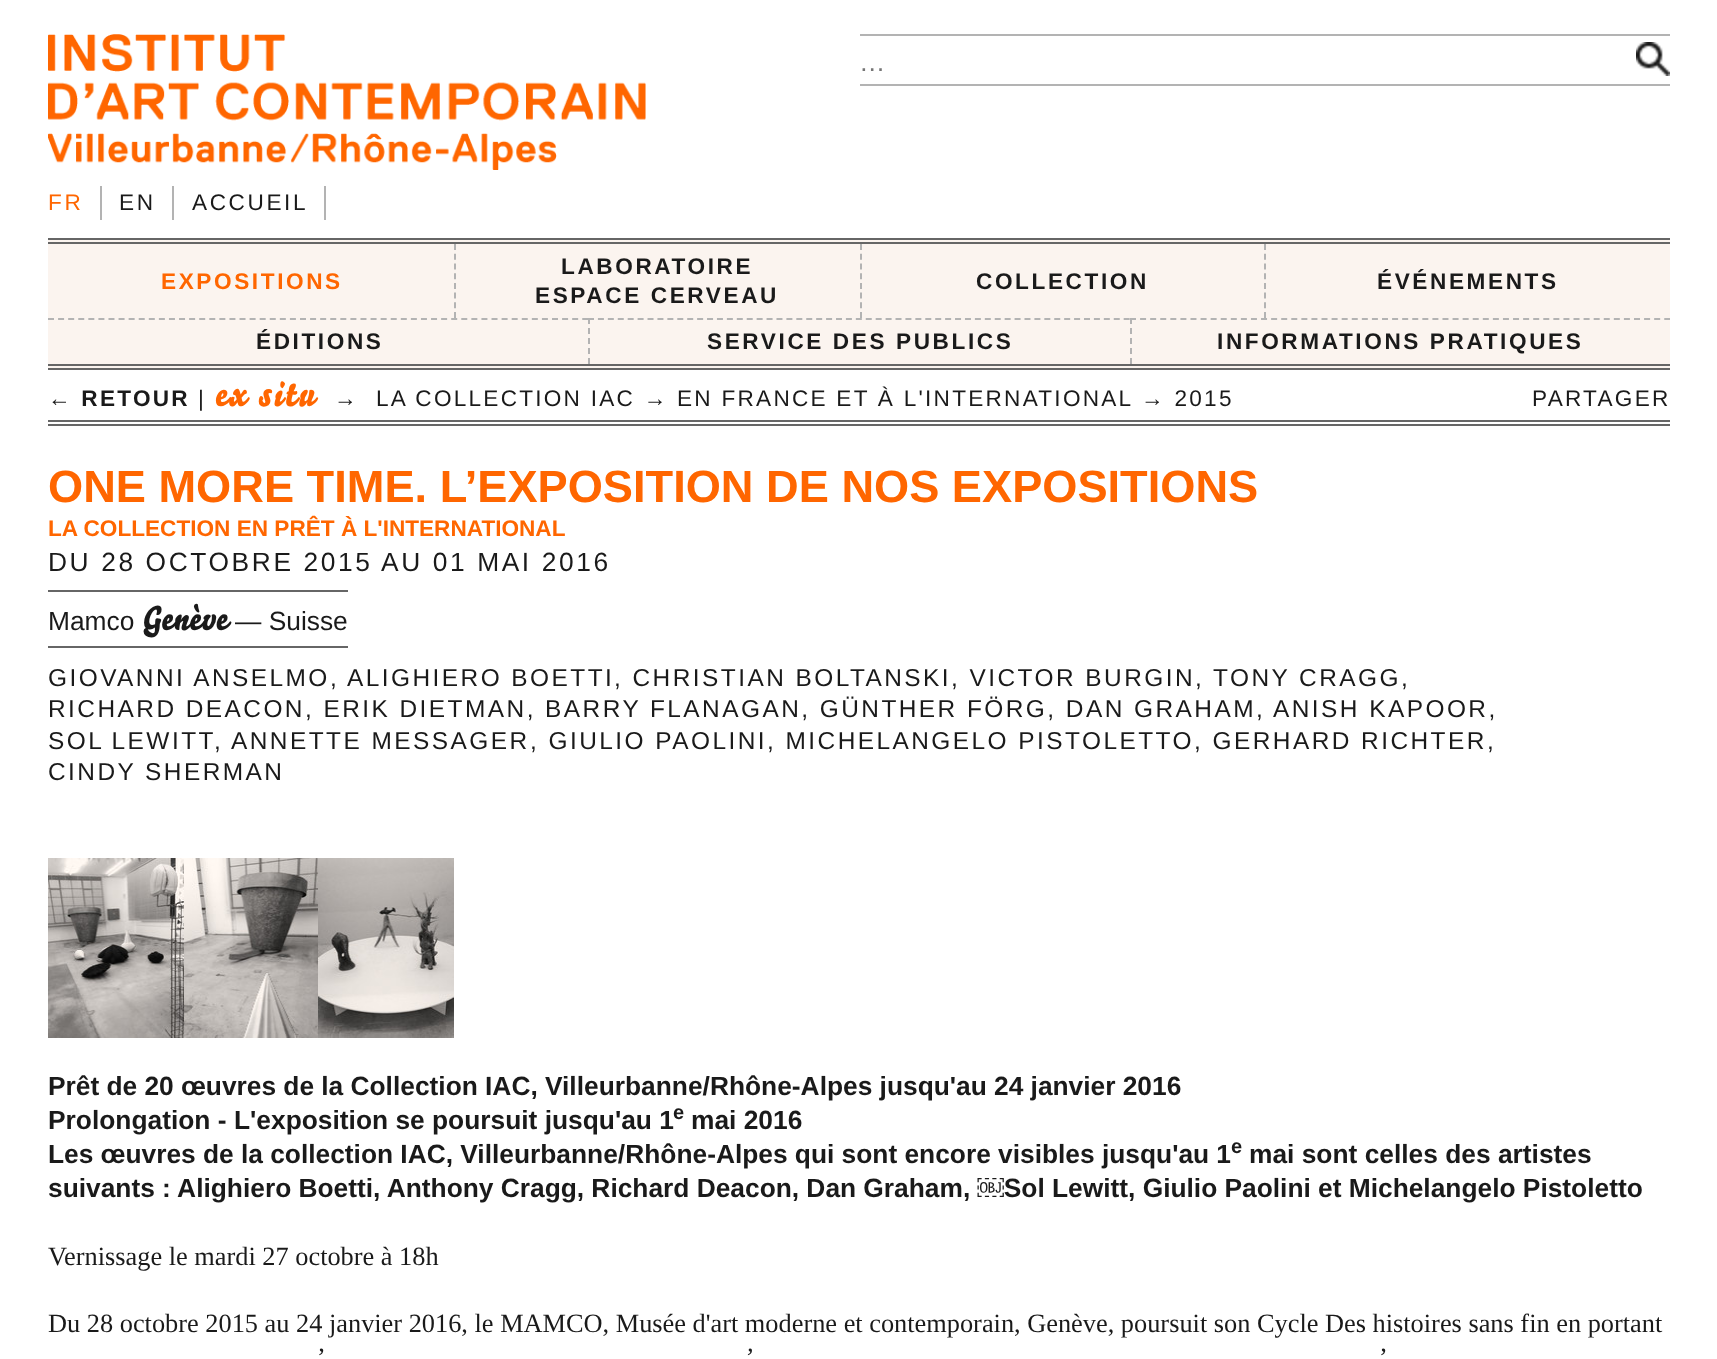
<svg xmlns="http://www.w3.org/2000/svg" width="1717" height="1359">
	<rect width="100%" height="100%" fill="#FFFFFF" />
	<image x="48" y="34" width="598" height="136" href="assets/img1.png" />
	<rect x="860" y="34" width="810" height="2" fill="#B3B3B3" />
	<rect x="860" y="84" width="810" height="2" fill="#B3B3B3" />
	<text x="859" y="71" font-family="Liberation Sans" font-size="26.35" fill="#757575">…</text>
	<rect x="1636" y="42" width="34" height="34" fill="#1A1A1A" />
	<image x="1636" y="42" width="34" height="34" href="assets/img2.png" />
	<rect x="324" y="186" width="2" height="34" fill="#B3B3B3" />
	<text x="48" y="210" font-family="Liberation Sans" font-size="22.6" letter-spacing="2.6" fill="#FF6600">FR</text>
	<rect x="100" y="186" width="2" height="34" fill="#B3B3B3" />
	<text x="119" y="210" font-family="Liberation Sans" font-size="22.6" letter-spacing="2.6" fill="#1A1A1A">EN</text>
	<rect x="172" y="186" width="2" height="34" fill="#B3B3B3" />
	<text x="192" y="210" font-family="Liberation Sans" font-size="22.6" letter-spacing="2.6" fill="#1A1A1A">ACCUEIL</text>
	<rect x="48" y="240" width="1622" height="128" fill="#FBF4EF" />
	<rect x="48" y="238" width="1622" height="2" fill="#666666" />
	<rect x="48" y="242" width="1622" height="2" fill="#666666" />
	<rect x="48" y="364" width="1622" height="2" fill="#666666" />
	<rect x="48" y="368" width="1622" height="2" fill="#666666" />
	<text x="161" y="289" font-family="Liberation Sans" font-size="22.6" font-weight="700" letter-spacing="2.6" fill="#FF6600">EXPOSITIONS</text>
	<path d="M455 244V318" fill="none" stroke="#B3B3B3" stroke-width="2" stroke-dasharray="6 3.72" />
	<g font-family="Liberation Sans" font-size="22.6" font-weight="700" letter-spacing="2.6" fill="#1A1A1A">
		<text x="561" y="274">LABORATOIRE</text>
		<text x="535" y="303">ESPACE CERVEAU</text>
	</g>
	<path d="M861 244V318" fill="none" stroke="#B3B3B3" stroke-width="2" stroke-dasharray="6 3.72" />
	<text x="976" y="289" font-family="Liberation Sans" font-size="22.6" font-weight="700" letter-spacing="2.6" fill="#1A1A1A">COLLECTION</text>
	<path d="M1265 244V318" fill="none" stroke="#B3B3B3" stroke-width="2" stroke-dasharray="6 3.72" />
	<text x="1377" y="289" font-family="Liberation Sans" font-size="22.6" font-weight="700" letter-spacing="2.6" fill="#1A1A1A">ÉVÉNEMENTS</text>
	<path d="M48 319H588" fill="none" stroke="#B3B3B3" stroke-width="2" stroke-dasharray="6 4.08" />
	<text x="256" y="349" font-family="Liberation Sans" font-size="22.6" font-weight="700" letter-spacing="2.6" fill="#1A1A1A">ÉDITIONS</text>
	<path d="M588 319H1130" fill="none" stroke="#B3B3B3" stroke-width="2" stroke-dasharray="6 3.92" />
	<path d="M589 318V364" fill="none" stroke="#B3B3B3" stroke-width="2" stroke-dasharray="6 4" />
	<text x="707" y="349" font-family="Liberation Sans" font-size="22.6" font-weight="700" letter-spacing="2.6" fill="#1A1A1A">SERVICE DES PUBLICS</text>
	<path d="M1130 319H1670" fill="none" stroke="#B3B3B3" stroke-width="2" stroke-dasharray="6 4.08" />
	<path d="M1131 318V364" fill="none" stroke="#B3B3B3" stroke-width="2" stroke-dasharray="6 4" />
	<text x="1217" y="349" font-family="Liberation Sans" font-size="22.6" font-weight="700" letter-spacing="2.6" fill="#1A1A1A">INFORMATIONS PRATIQUES</text>
	<rect x="48" y="420" width="1622" height="2" fill="#666666" />
	<rect x="48" y="424" width="1622" height="2" fill="#666666" />
	<text x="48" y="406" font-family="Liberation Sans" font-size="22.6" font-weight="700" letter-spacing="2.25" fill="#1A1A1A">← RETOUR</text>
	<text x="198" y="406" font-family="Liberation Sans" font-size="22.6" letter-spacing="2.25" fill="#1A1A1A">|</text>
	<text x="215" y="406" font-family="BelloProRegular" font-size="35.5" letter-spacing="2.25" fill="#FF6600">ex situ</text>
	<g font-family="Liberation Sans" font-size="22.6" letter-spacing="2.25" fill="#1A1A1A">
		<text x="334" y="406" xml:space="preserve">→  LA COLLECTION IAC → EN FRANCE ET À L'INTERNATIONAL → 2015</text>
		<text x="1532" y="406">PARTAGER</text>
	</g>
	<text x="48" y="502" font-family="Liberation Sans" font-size="45.2" font-weight="700" fill="#FF6600">ONE MORE TIME. L’EXPOSITION DE NOS EXPOSITIONS</text>
	<text x="48" y="536" font-family="Liberation Sans" font-size="22.6" font-weight="700" fill="#FF6600">LA COLLECTION EN PRÊT À L'INTERNATIONAL</text>
	<g font-family="Liberation Sans" font-size="26.35" letter-spacing="2.6" fill="#1A1A1A">
		<text x="48" y="571">DU 28 OCTOBRE 2015</text>
		<text x="381" y="571">AU 01 MAI 2016</text>
	</g>
	<rect x="48" y="590" width="300" height="2" fill="#666666" />
	<rect x="48" y="646" width="300" height="2" fill="#666666" />
	<text x="48" y="630" font-family="Liberation Sans" font-size="26.35" fill="#1A1A1A">Mamco</text>
	<text x="142" y="630" font-family="BelloProRegular" font-size="34" fill="#1A1A1A">Genève</text>
	<text x="235" y="630" font-family="Liberation Sans" font-size="26.35" fill="#1A1A1A">— Suisse</text>
	<g font-family="Liberation Sans" font-size="24.45" letter-spacing="2.45" fill="#1A1A1A">
		<text x="48" y="686">GIOVANNI ANSELMO</text>
		<text x="330" y="686">,</text>
		<text x="347" y="686">ALIGHIERO BOETTI</text>
		<text x="614" y="686">, CHRISTIAN BOLTANSKI</text>
		<text x="951" y="686">, VICTOR BURGIN,</text>
		<text x="1213" y="686">TONY CRAGG,</text>
		<text x="48" y="717">RICHARD DEACON, ERIK DIETMAN, BARRY FLANAGAN, GÜNTHER FÖRG, DAN GRAHAM,</text>
		<text x="1273" y="717">ANISH KAPOOR,</text>
		<text x="48" y="749" word-spacing="-1">SOL LEWITT</text>
		<text x="214" y="749">,</text>
		<text x="231" y="749">ANNETTE MESSAGER</text>
		<text x="530" y="749">, GIULIO PAOLINI, MICHELANGELO PISTOLETTO</text>
		<text x="1194" y="749">, GERHARD RICHTER</text>
		<text x="1487" y="749">,</text>
		<text x="48" y="780">CINDY SHERMAN</text>
	</g>
	<image x="48" y="858" width="136" height="180" href="assets/img3.png" />
	<image x="184" y="858" width="134" height="180" href="assets/img4.png" />
	<image x="318" y="858" width="136" height="180" href="assets/img5.png" />
	<g font-family="Liberation Sans" font-size="26.35" font-weight="700" fill="#1A1A1A">
		<text x="48" y="1095" word-spacing="-0.1">Prêt de 20 œuvres de la Collection IAC, Villeurbanne/Rhône-Alpes jusqu'au 24 janvier 2016</text>
		<text x="48" y="1129">Prolongation -</text>
		<text x="234" y="1129">L'exposition se poursuit jusqu'au 1</text>
	</g>
	<text x="673" y="1119" font-family="Liberation Sans" font-size="20" font-weight="700" fill="#1A1A1A">e</text>
	<g font-family="Liberation Sans" font-size="26.35" font-weight="700" fill="#1A1A1A">
		<text x="691" y="1129">mai 2016</text>
		<text x="48" y="1163" word-spacing="-0.1">Les œuvres de la collection IAC, Villeurbanne/Rhône-Alpes qui sont encore visibles jusqu'au 1</text>
	</g>
	<text x="1231" y="1153" font-family="Liberation Sans" font-size="20" font-weight="700" fill="#1A1A1A">e</text>
	<g font-family="Liberation Sans" font-size="26.35" font-weight="700" fill="#1A1A1A">
		<text x="1249" y="1163">mai sont celles des artistes</text>
		<text x="48" y="1197" word-spacing="-0.1">suivants : Alighiero Boetti, Anthony Cragg, Richard Deacon, Dan Graham, ￼Sol Lewitt, Giulio Paolini et Michelangelo Pistoletto</text>
	</g>
	<g font-family="Liberation Serif" font-size="26.35" fill="#1A1A1A">
		<text x="48" y="1265">Vernissage le mardi 27 octobre à 18h</text>
		<text x="48" y="1332">Du 28 octobre 2015 au 24 janvier 2016, le MAMCO, Musée d'art moderne et contemporain, Genève, poursuit son Cycle Des histoires sans fin en portant</text>
		<text x="317" y="1366">’</text>
	</g>
	<text x="744" y="1366" font-family="Liberation Serif" font-size="26.35" font-style="italic" fill="#1A1A1A">’</text>
	<text x="1379" y="1366" font-family="Liberation Serif" font-size="26.35" fill="#1A1A1A">’</text>
</svg>
